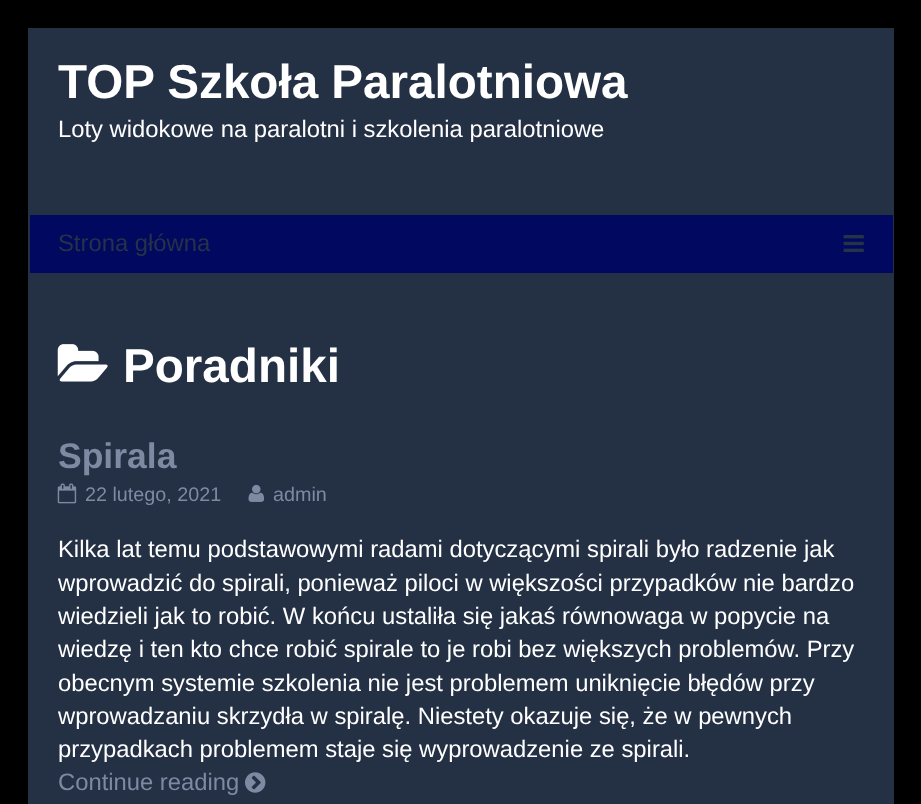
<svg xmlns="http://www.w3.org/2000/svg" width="921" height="804">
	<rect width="100%" height="100%" fill="#000000" />
	<rect x="28" y="28" width="866" height="776" fill="#243044" />
	<text x="58" y="98" font-family="Liberation Sans" font-size="47.6" font-weight="700" fill="#FFFFFF">TOP Szkoła Paralotniowa</text>
	<text x="58" y="137" font-family="Liberation Sans" font-size="23.8" fill="#FFFFFF">Loty widokowe na paralotni i szkolenia paralotniowe</text>
	<rect x="30" y="215" width="863" height="58" fill="#000860" />
	<text x="58" y="251" font-family="Liberation Sans" font-size="23.8" fill="#263248">Strona główna</text>
	<image x="843" y="235" width="21" height="17" href="assets/img1.png" />
	<image x="57" y="344" width="51" height="38" href="assets/img2.png" />
	<text x="123" y="382" font-family="Liberation Sans" font-size="47.6" font-weight="700" fill="#FFFFFF">Poradniki</text>
	<text x="58" y="468" font-family="Liberation Sans" font-size="35.5" font-weight="700" fill="#7E8AA2">Spirala</text>
	<image x="57" y="483" width="20" height="21" href="assets/img3.png" />
	<text x="85" y="501" font-family="Liberation Sans" font-size="19.75" fill="#7E8AA2">22 lutego, 2021</text>
	<image x="248" y="484" width="17" height="18" href="assets/img4.png" />
	<text x="273" y="501" font-family="Liberation Sans" font-size="19.75" fill="#7E8AA2">admin</text>
	<g font-family="Liberation Sans" font-size="23.8" fill="#FFFFFF">
		<text x="58" y="557">Kilka lat temu podstawowymi radami dotyczącymi spirali było radzenie jak</text>
		<text x="58" y="591">wprowadzić do spirali, ponieważ piloci w większości przypadków nie bardzo</text>
		<text x="58" y="624">wiedzieli jak to robić. W końcu ustaliła się jakaś równowaga w popycie na</text>
		<text x="58" y="657">wiedzę i ten kto chce robić spirale to je robi bez większych problemów. Przy</text>
		<text x="58" y="691">obecnym systemie szkolenia nie jest problemem uniknięcie błędów przy</text>
		<text x="58" y="724">wprowadzaniu skrzydła w spiralę. Niestety okazuje się, że w pewnych</text>
		<text x="58" y="757">przypadkach problemem staje się wyprowadzenie ze spirali.</text>
	</g>
	<text x="58" y="790" font-family="Liberation Sans" font-size="23.8" fill="#7E8AA2">Continue reading</text>
	<image x="245" y="772" width="21" height="21" href="assets/img5.png" />
</svg>
